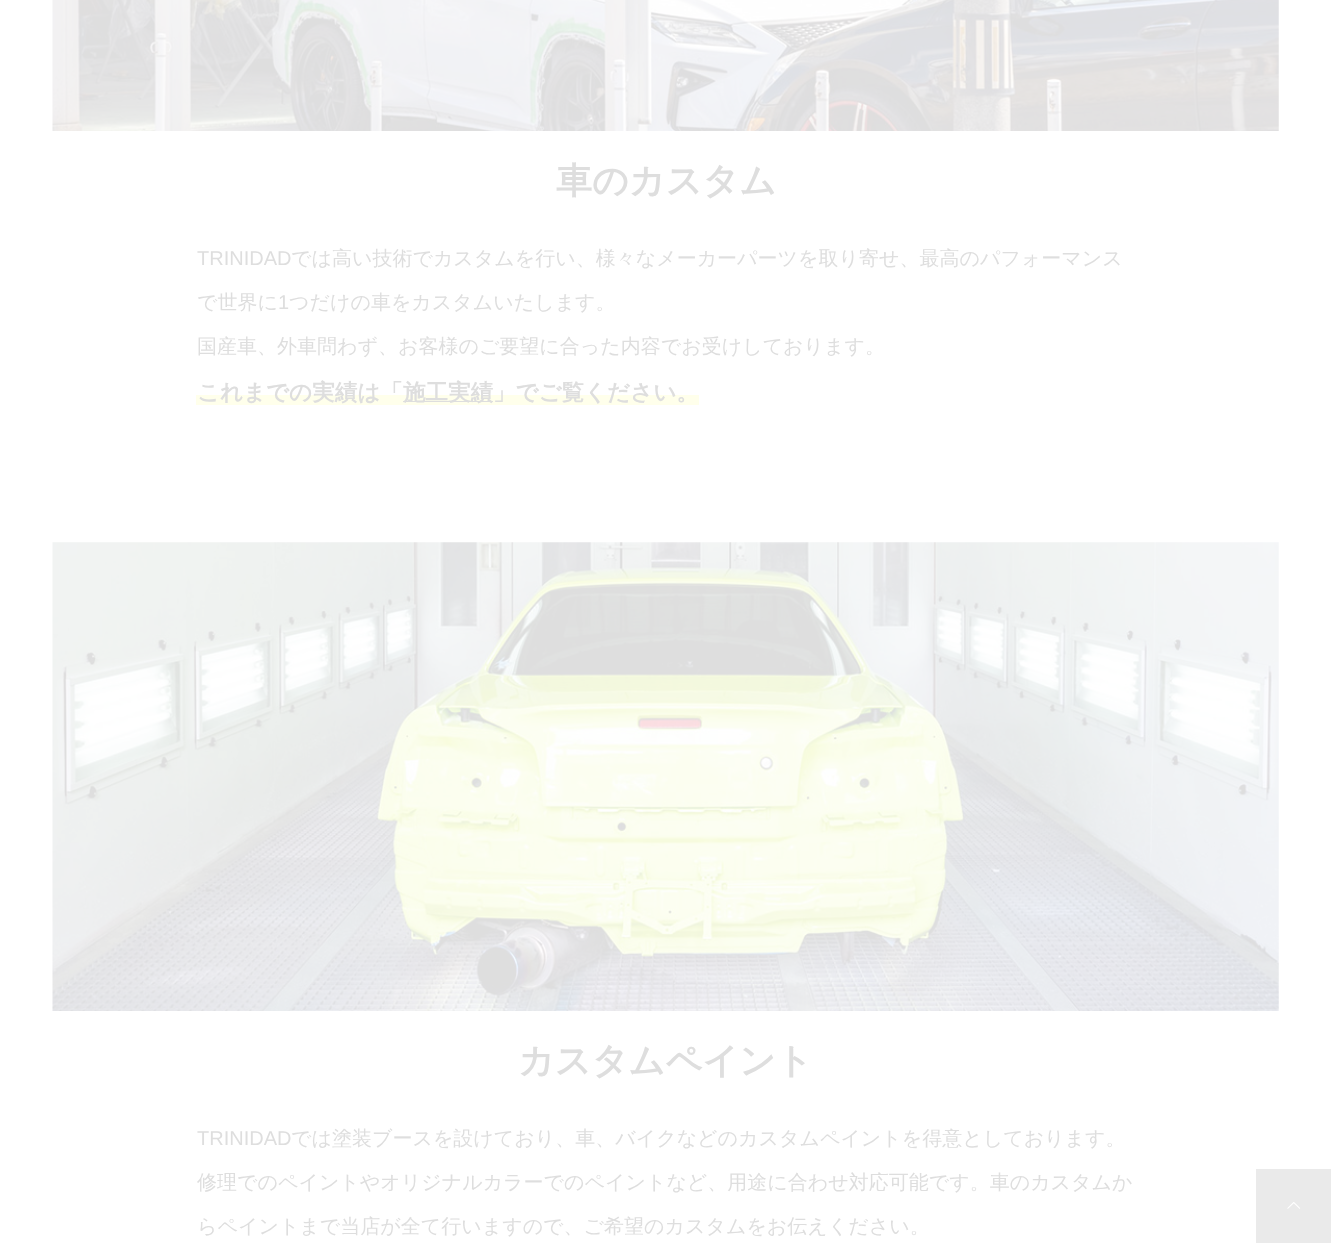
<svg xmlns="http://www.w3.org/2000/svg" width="1331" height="1243">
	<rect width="100%" height="100%" fill="#FFFFFF" />
	<image x="52" y="0" width="1227" height="131" href="assets/img1.png" />
	<text x="556" y="193" font-family="WenQuanYi Zen Hei" font-size="36" font-weight="700" fill="#DEDEDE">車のカスタム</text>
	<text x="197" y="265" font-family="Liberation Sans" font-size="20" fill="#DEDEDE">TRINIDAD</text>
	<g font-family="WenQuanYi Zen Hei" font-size="20" font-weight="500" fill="#DEDEDE">
		<text x="291" y="265">では高い技術でカスタムを行い、様々なメーカーパーツを取り寄せ、最高のパフォーマンス</text>
		<text x="197" y="309">で世界に</text>
	</g>
	<text x="278" y="309" font-family="Liberation Sans" font-size="20" fill="#DEDEDE">1</text>
	<g font-family="WenQuanYi Zen Hei" font-size="20" font-weight="500" fill="#DEDEDE">
		<text x="289" y="309">つだけの車をカスタムいたします。</text>
		<text x="197" y="353">国産車、外車問わず、お客様のご要望に合った内容でお受けしております。</text>
	</g>
	<rect x="196" y="395" width="503" height="10" fill="#FFFFEB" />
	<text x="197" y="400" font-family="WenQuanYi Zen Hei" font-size="22.5" font-weight="700" fill="#DEDEDE">これまでの実績は「</text>
	<rect x="403" y="401" width="90" height="1" fill="#DEDEDE" />
	<text x="403" y="400" font-family="WenQuanYi Zen Hei" font-size="22.5" font-weight="700" fill="#DEDEDE">施工実績」でご覧ください。</text>
	<image x="52" y="542" width="1227" height="469" href="assets/img2.png" />
	<text x="518" y="1073" font-family="WenQuanYi Zen Hei" font-size="36" font-weight="700" fill="#DEDEDE">カスタムペイント</text>
	<text x="197" y="1145" font-family="Liberation Sans" font-size="20" fill="#DEDEDE">TRINIDAD</text>
	<g font-family="WenQuanYi Zen Hei" font-size="20" font-weight="500" fill="#DEDEDE">
		<text x="291" y="1145">では塗装ブースを設けており、車、バイクなどのカスタムペイントを得意としております。</text>
		<text x="197" y="1189">修理でのペイントやオリジナルカラーでのペイントなど、用途に合わせ対応可能です。車のカスタムか</text>
		<text x="197" y="1233">らペイントまで当店が全て行いますので、ご希望のカスタムをお伝えください。</text>
	</g>
	<rect x="1256" y="1169" width="75" height="74" fill="#EAEAEA" />
	<image x="1287" y="1202" width="14" height="7" href="assets/img3.png" />
</svg>
